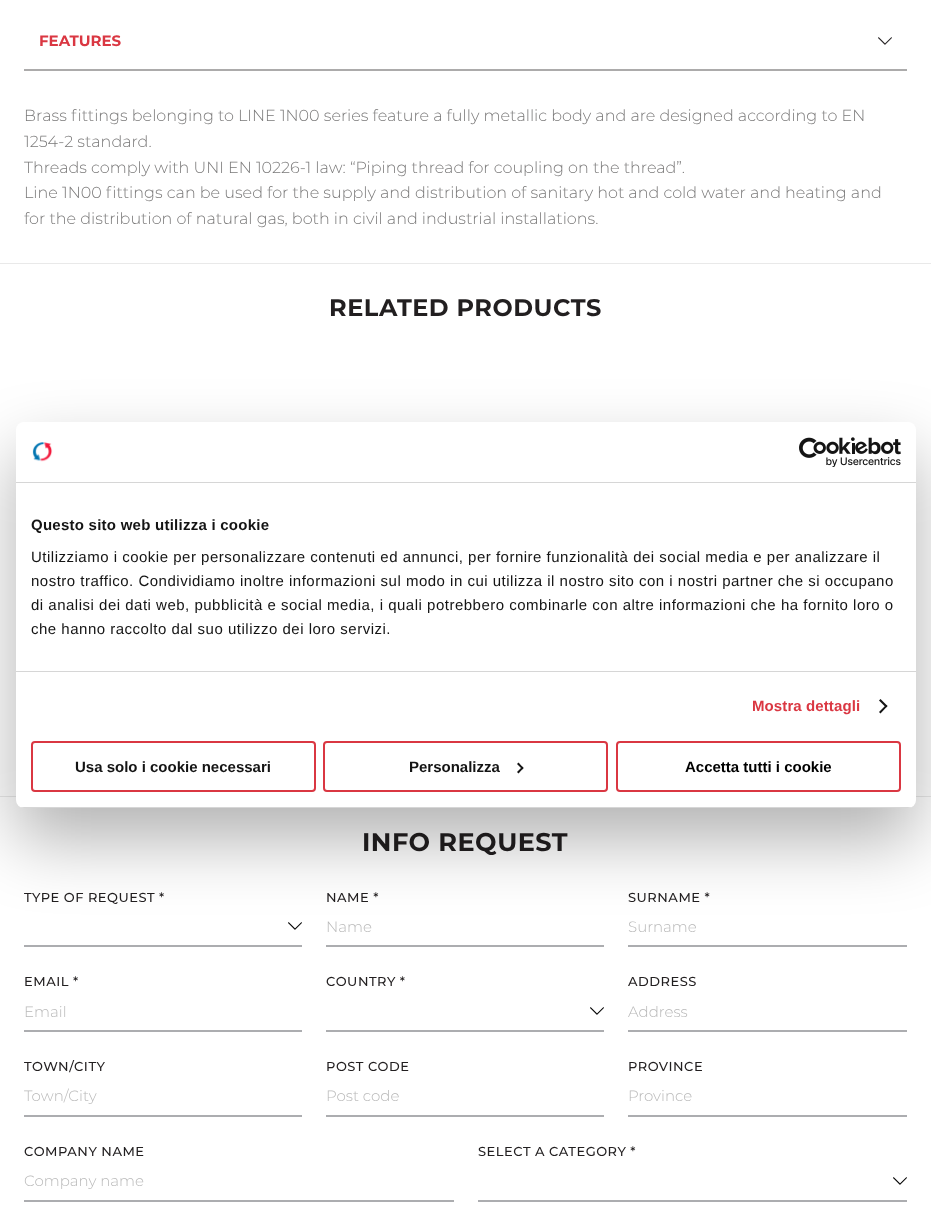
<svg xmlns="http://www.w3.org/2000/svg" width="931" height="1230">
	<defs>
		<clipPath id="clip1"><rect x="16" y="422" width="900" height="386" rx="8" /></clipPath>
	</defs>
	<rect width="100%" height="100%" fill="#FFFFFF" />
	<rect x="24" y="69" width="883" height="2" fill="#ACABAB" />
	<text x="39" y="46" font-family="Montserrat" font-size="15" font-weight="700" fill="#DA3742">FEATURES</text>
	<image x="878" y="37" width="14" height="8" href="assets/img1.png" />
	<g font-family="Montserrat" font-size="16" font-weight="300" fill="#7A7979">
		<text x="24" y="121">Brass fittings belonging to LINE 1N00 series feature a fully metallic body and are designed according to EN</text>
		<text x="24" y="147">1254-2 standard.</text>
		<text x="24" y="173">Threads comply with UNI EN 10226-1 law: “Piping thread for coupling on the thread”.</text>
		<text x="24" y="198">Line 1N00 fittings can be used for the supply and distribution of sanitary hot and cold water and heating and</text>
		<text x="24" y="224">for the distribution of natural gas, both in civil and industrial installations.</text>
	</g>
	<rect x="0" y="263" width="931" height="1" fill="#E9E9E9" />
	<text x="329" y="316" font-family="Montserrat" font-size="24" font-weight="700" letter-spacing="0.5" fill="#221F20">RELATED PRODUCTS</text>
	<rect x="0" y="796" width="931" height="1" fill="#E9E9E9" />
	<text x="362" y="851" font-family="Montserrat" font-size="25.5" font-weight="700" letter-spacing="0.5" fill="#221F20">INFO REQUEST</text>
	<text x="24" y="902" font-family="Montserrat" font-size="13" font-weight="500" letter-spacing="0.5" fill="#221F20">TYPE OF REQUEST *</text>
	<image x="288" y="922" width="14" height="8" href="assets/img2.png" />
	<rect x="24" y="945" width="278" height="2" fill="#ACADB0" />
	<text x="326" y="902" font-family="Montserrat" font-size="13" font-weight="500" letter-spacing="0.5" fill="#221F20">NAME *</text>
	<rect x="326" y="945" width="278" height="2" fill="#ACADB0" />
	<text x="326" y="932" font-family="Montserrat" font-size="15" font-weight="300" fill="#B9B9B9">Name</text>
	<text x="628" y="902" font-family="Montserrat" font-size="13" font-weight="500" letter-spacing="0.5" fill="#221F20">SURNAME *</text>
	<rect x="628" y="945" width="279" height="2" fill="#ACADB0" />
	<text x="628" y="932" font-family="Montserrat" font-size="15" font-weight="300" fill="#B9B9B9">Surname</text>
	<text x="24" y="986" font-family="Montserrat" font-size="13" font-weight="500" letter-spacing="0.5" fill="#221F20">EMAIL *</text>
	<rect x="24" y="1030" width="278" height="2" fill="#ACADB0" />
	<text x="24" y="1017" font-family="Montserrat" font-size="15" font-weight="300" fill="#B9B9B9">Email</text>
	<text x="326" y="986" font-family="Montserrat" font-size="13" font-weight="500" letter-spacing="0.5" fill="#221F20">COUNTRY *</text>
	<image x="590" y="1007" width="14" height="8" href="assets/img2.png" />
	<rect x="326" y="1030" width="278" height="2" fill="#ACADB0" />
	<text x="628" y="986" font-family="Montserrat" font-size="13" font-weight="500" letter-spacing="0.5" fill="#221F20">ADDRESS</text>
	<rect x="628" y="1030" width="279" height="2" fill="#ACADB0" />
	<text x="628" y="1017" font-family="Montserrat" font-size="15" font-weight="300" fill="#B9B9B9">Address</text>
	<text x="24" y="1071" font-family="Montserrat" font-size="13" font-weight="500" letter-spacing="0.5" fill="#221F20">TOWN/CITY</text>
	<rect x="24" y="1115" width="278" height="2" fill="#ACADB0" />
	<text x="24" y="1101" font-family="Montserrat" font-size="15" font-weight="300" fill="#B9B9B9">Town/City</text>
	<text x="326" y="1071" font-family="Montserrat" font-size="13" font-weight="500" letter-spacing="0.5" fill="#221F20">POST CODE</text>
	<rect x="326" y="1115" width="278" height="2" fill="#ACADB0" />
	<text x="326" y="1101" font-family="Montserrat" font-size="15" font-weight="300" fill="#B9B9B9">Post code</text>
	<text x="628" y="1071" font-family="Montserrat" font-size="13" font-weight="500" letter-spacing="0.5" fill="#221F20">PROVINCE</text>
	<rect x="628" y="1115" width="279" height="2" fill="#ACADB0" />
	<text x="628" y="1101" font-family="Montserrat" font-size="15" font-weight="300" fill="#B9B9B9">Province</text>
	<text x="24" y="1156" font-family="Montserrat" font-size="13" font-weight="500" letter-spacing="0.5" fill="#221F20">COMPANY NAME</text>
	<rect x="24" y="1200" width="430" height="2" fill="#ACADB0" />
	<text x="24" y="1186" font-family="Montserrat" font-size="15" font-weight="300" fill="#B9B9B9">Company name</text>
	<text x="478" y="1156" font-family="Montserrat" font-size="13" font-weight="500" letter-spacing="0.5" fill="#221F20">SELECT A CATEGORY *</text>
	<image x="893" y="1177" width="14" height="8" href="assets/img2.png" />
	<rect x="478" y="1200" width="429" height="2" fill="#ACADB0" />
	<rect x="16" y="454" width="900" height="386" rx="8" fill="#000000" fill-opacity="0.3" filter="blur(34px)" />
	<rect x="16" y="422" width="900" height="386" rx="8" fill="#FFFFFF" />
	<rect x="16" y="482" width="900" height="1" fill="#D6D6D6" />
	<image x="32" y="442" width="21" height="20" href="assets/img3.png" />
	<image x="799" y="437" width="102" height="30" href="assets/img4.png" />
	<rect x="16" y="671" width="900" height="1" fill="#D6D6D6" />
	<text x="31" y="530" font-family="Liberation Sans" font-size="15" font-weight="700" letter-spacing="0.25" fill="#141414">Questo sito web utilizza i cookie</text>
	<g font-family="Liberation Sans" font-size="15" letter-spacing="0.5" fill="#141414">
		<text x="31" y="562">Utilizziamo i cookie per personalizzare contenuti ed annunci, per fornire funzionalità dei social media e per analizzare il</text>
		<text x="31" y="586">nostro traffico. Condividiamo inoltre informazioni sul modo in cui utilizza il nostro sito con i nostri partner che si occupano</text>
		<text x="31" y="610">di analisi dei dati web, pubblicità e social media, i quali potrebbero combinarle con altre informazioni che ha fornito loro o</text>
		<text x="31" y="634">che hanno raccolto dal suo utilizzo dei loro servizi.</text>
	</g>
	<text x="752" y="711" font-family="Liberation Sans" font-size="15" font-weight="700" letter-spacing="0.1" fill="#DA3742">Mostra dettagli</text>
	<path d="M880.5 699L887.5 706L886 707.5L879 700.5Z" fill="#141414" />
	<path d="M886 705L887.5 706L880.5 713.5L879 712Z" fill="#141414" />
	<g clip-path="url(#clip1)">
		<rect x="16" y="807" width="900" height="1" fill="#D6D6D6" />
	</g>
	<rect x="32" y="742" width="283" height="49" rx="3" fill="none" stroke="#DA3742" stroke-width="2" />
	<text x="75" y="772" font-family="Liberation Sans" font-size="15" font-weight="700" fill="#141414">Usa solo i cookie necessari</text>
	<rect x="324" y="742" width="283" height="49" rx="3" fill="none" stroke="#DA3742" stroke-width="2" />
	<text x="409" y="772" font-family="Liberation Sans" font-size="15" font-weight="700" fill="#141414">Personalizza</text>
	<path d="M518.5 762.5L523.5 768L522.5 769.5L517 764Z" fill="#141414" />
	<path d="M522.5 766.5L523.5 768L518.5 773.5L517 772Z" fill="#141414" />
	<rect x="617" y="742" width="283" height="49" rx="3" fill="none" stroke="#DA3742" stroke-width="2" />
	<text x="685" y="772" font-family="Liberation Sans" font-size="15" font-weight="700" fill="#000000">Accetta tutti i cookie</text>
</svg>
